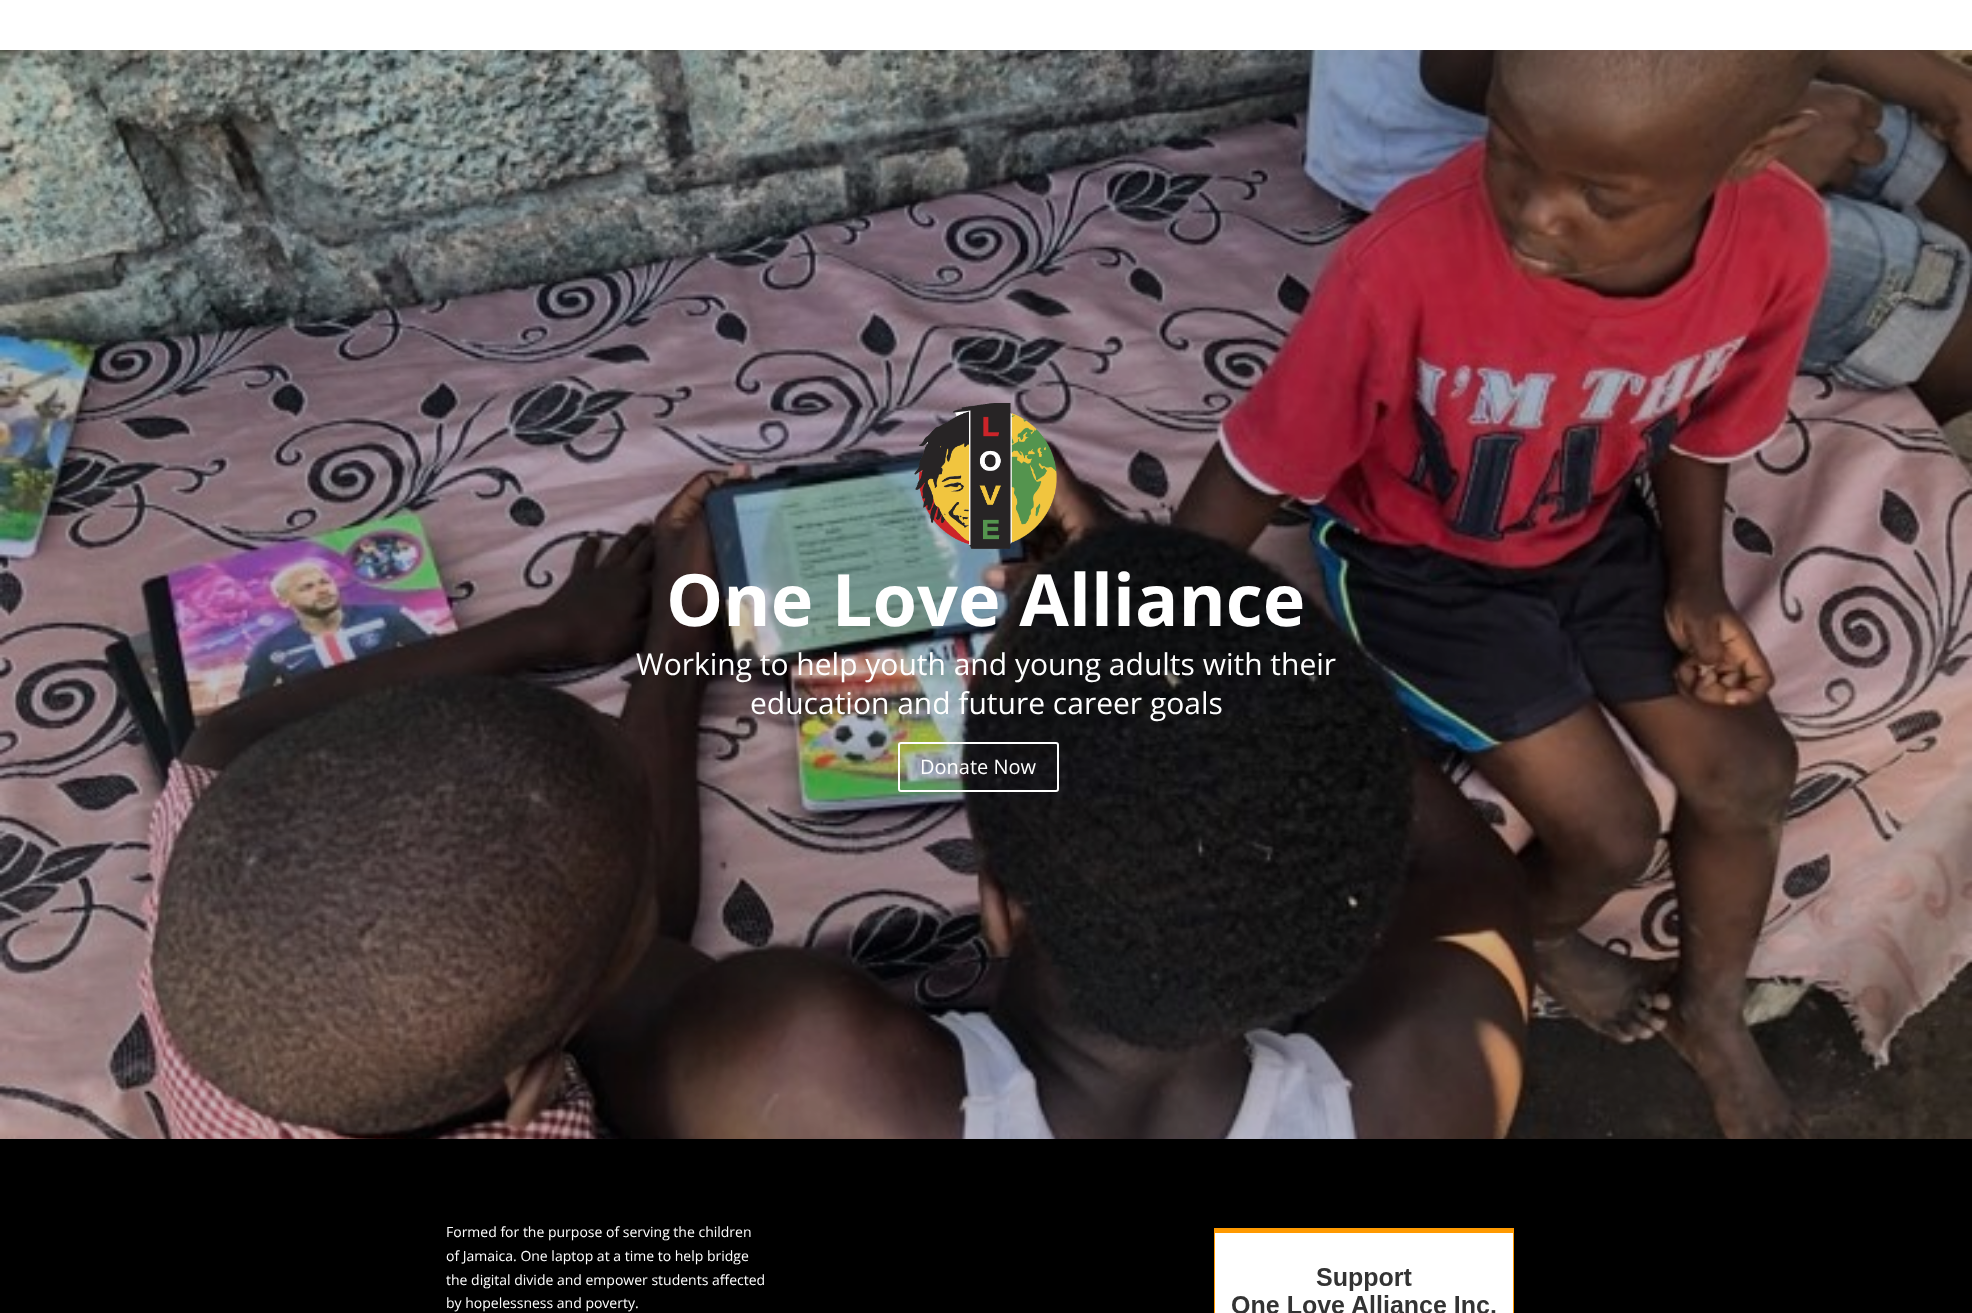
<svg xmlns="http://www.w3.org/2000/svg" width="1972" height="1313">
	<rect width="100%" height="100%" fill="#FFFFFF" />
	<image x="0" y="50" width="1972" height="1089" href="assets/img1.png" />
	<image x="914" y="403" width="143" height="146" href="assets/img2.png" />
	<text x="666" y="626" font-family="Open Sans" font-size="72" font-weight="700" fill="#FFFFFF">One Love Alliance</text>
	<g font-family="Open Sans" font-size="30" fill="#FFFFFF">
		<text x="636" y="675">Working to help youth and young adults with their</text>
		<text x="750" y="714">education and future career goals</text>
	</g>
	<rect x="899" y="743" width="159" height="48" rx="2" fill="none" stroke="#FFFFFF" stroke-width="2" />
	<text x="920" y="774" font-family="Open Sans" font-size="20" fill="#FFFFFF">Donate Now</text>
	<rect x="0" y="1139" width="1972" height="174" fill="#000000" />
	<g font-family="Open Sans" font-size="14" fill="#FFFFFF">
		<text x="446" y="1237">Formed for the purpose of serving the children</text>
		<text x="446" y="1261">of Jamaica. One laptop at a time to help bridge</text>
		<text x="446" y="1285">the digital divide and empower students affected</text>
		<text x="446" y="1308">by hopelessness and poverty.</text>
	</g>
	<image x="1214" y="1228" width="300" height="85" href="assets/img3.png" />
</svg>
